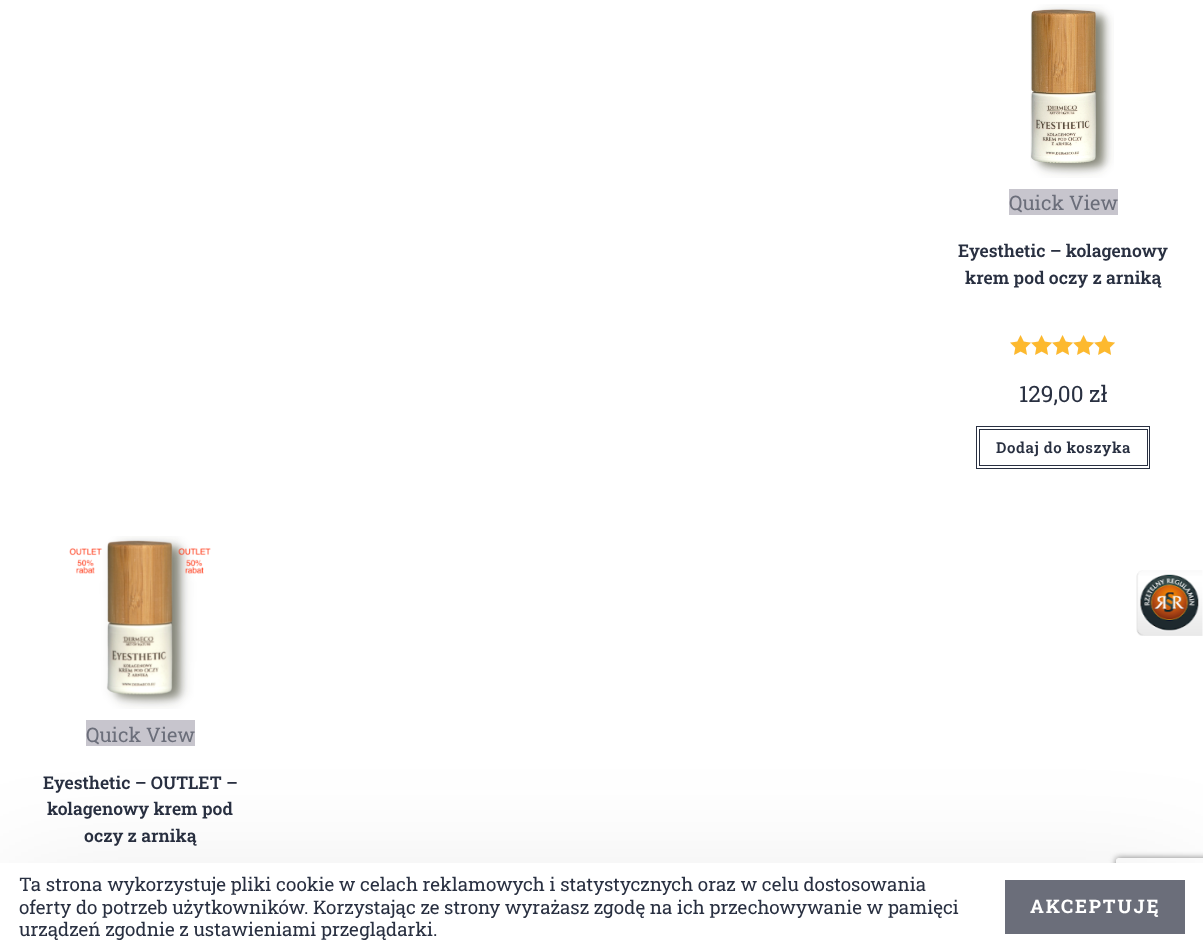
<svg xmlns="http://www.w3.org/2000/svg" width="1203" height="949">
	<defs>
		<clipPath id="clip1"><path d="M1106 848H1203V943H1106ZM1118.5 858H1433.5C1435 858 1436 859 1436 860.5V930.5C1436 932 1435 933 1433.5 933H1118.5C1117 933 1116 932 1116 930.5V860.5C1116 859 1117 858 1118.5 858Z" clip-rule="evenodd" /></clipPath>
	</defs>
	<rect width="100%" height="100%" fill="#FFFFFF" />
	<image x="1030" y="4" width="84" height="174" href="assets/img1.png" />
	<rect x="1009" y="189" width="109" height="26" fill="#C7C5CD" />
	<text x="1009" y="210" font-family="Roboto Slab" font-size="20" fill="#6B6E7A">Quick View</text>
	<g font-family="Roboto Slab" font-size="17.5" font-weight="600" fill="#293041">
		<text x="958" y="257">Eyesthetic – kolagenowy</text>
		<text x="965" y="284">krem pod oczy z arniką</text>
	</g>
	<image x="1010" y="335" width="105" height="20" href="assets/img2.png" />
	<image x="1010" y="335" width="105" height="20" href="assets/img3.png" />
	<text x="1019" y="402" font-family="Roboto Slab" font-size="22.5" fill="#293041">129,00 zł</text>
	<rect x="976.5" y="426.5" width="173" height="42" fill="none" stroke="#293041" />
	<rect x="979.5" y="429.5" width="168" height="36" fill="none" stroke="#293041" />
	<text x="996" y="453" font-family="Roboto Slab" font-size="15" font-weight="600" letter-spacing="0.6" fill="#293041">Dodaj do koszyka</text>
	<image x="69" y="536" width="142" height="173" href="assets/img4.png" />
	<rect x="86" y="720" width="109" height="26" fill="#C7C5CD" />
	<text x="86" y="742" font-family="Roboto Slab" font-size="20" fill="#6B6E7A">Quick View</text>
	<g font-family="Roboto Slab" font-size="17.5" font-weight="600" fill="#293041">
		<text x="43" y="789">Eyesthetic – OUTLET –</text>
		<text x="47" y="815">kolagenowy krem pod</text>
		<text x="84" y="842">oczy z arniką</text>
	</g>
	<image x="1136" y="570" width="67" height="66" href="assets/img5.png" />
	<g clip-path="url(#clip1)">
		<rect x="1116" y="858" width="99" height="75" rx="2.5" fill="#808080" filter="blur(3px)" />
	</g>
	<rect x="0" y="888" width="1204" height="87" fill="#000000" fill-opacity="0.1" filter="blur(62.5px)" />
	<rect x="0" y="863" width="1203" height="86" fill="#FFFFFF" />
	<g font-family="Roboto Slab" font-size="18.75" fill="#293041">
		<text x="19" y="891">Ta strona wykorzystuje pliki cookie w celach reklamowych i statystycznych oraz w celu dostosowania</text>
		<text x="19" y="914">oferty do potrzeb użytkowników. Korzystając ze strony wyrażasz zgodę na ich przechowywanie w pamięci</text>
		<text x="19" y="936">urządzeń zgodnie z ustawieniami przeglądarki.</text>
	</g>
	<rect x="1005" y="880" width="180" height="54" fill="#6B6E7A" />
	<text x="1030" y="913" font-family="Roboto Slab" font-size="18.75" font-weight="700" letter-spacing="1.9" fill="#FFFFFF">AKCEPTUJĘ</text>
</svg>
